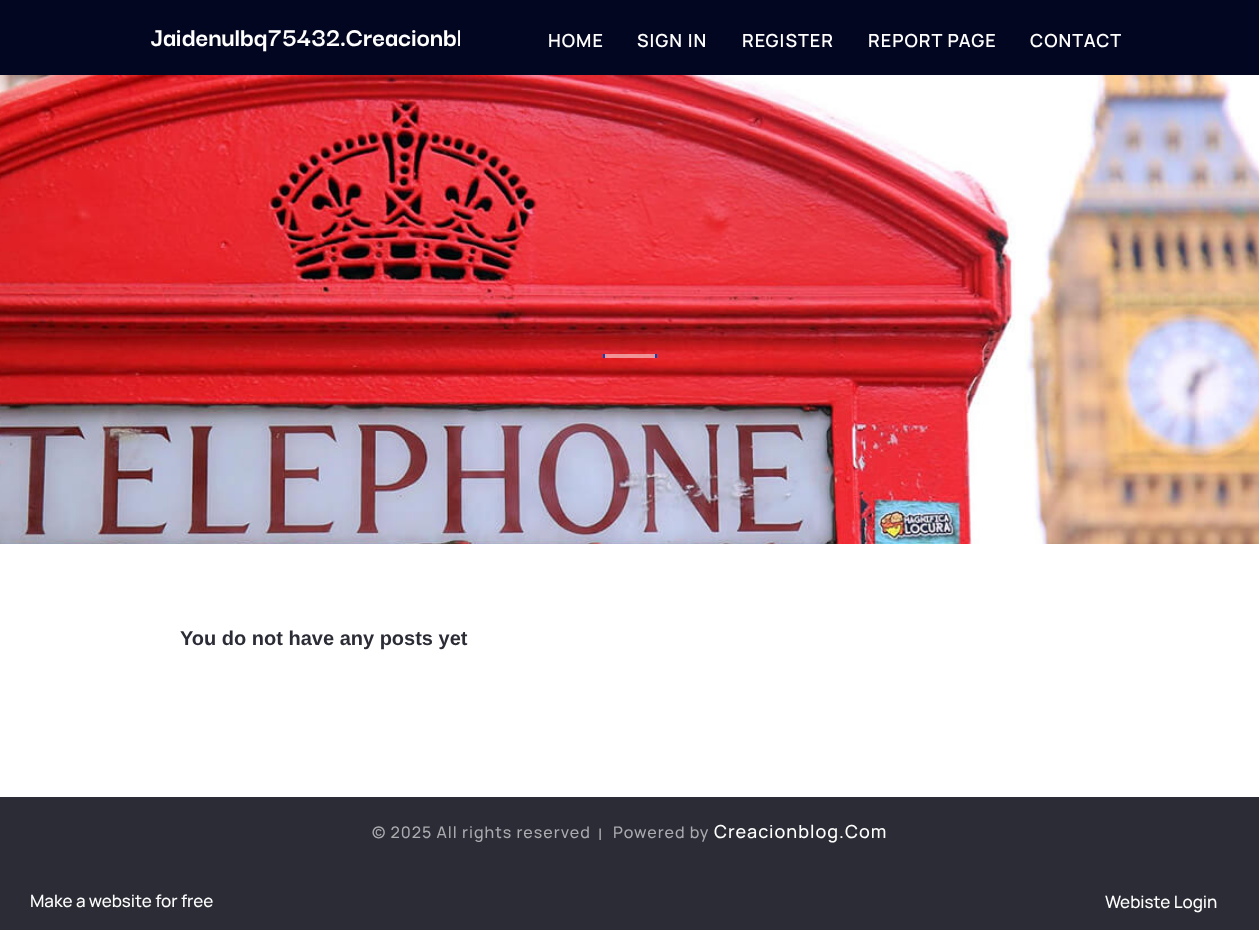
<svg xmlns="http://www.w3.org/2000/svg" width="1259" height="930">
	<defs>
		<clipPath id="clip1"><rect x="132" y="7" width="328" height="60" /></clipPath>
	</defs>
	<rect width="100%" height="100%" fill="#FFFFFF" />
	<rect x="0" y="0" width="1259" height="75" fill="#030620" />
	<g clip-path="url(#clip1)">
		<text x="150" y="46" font-family="Darker Grotesque" font-size="28" font-weight="700" fill="#FFFFFF">Jaidenulbq75432.Creacionbl</text>
	</g>
	<g font-family="Manrope" font-size="18" font-weight="600" letter-spacing="1" fill="#FFFFFF">
		<text x="548" y="47">HOME</text>
		<text x="637" y="47">SIGN IN</text>
		<text x="742" y="47">REGISTER</text>
		<text x="868" y="47">REPORT PAGE</text>
		<text x="1030" y="47">CONTACT</text>
	</g>
	<image x="0" y="75" width="1259" height="469" href="assets/img1.png" />
	<rect x="603" y="354" width="54" height="4" fill="#FFFFFF" fill-opacity="0.5" />
	<rect x="655" y="354" width="2" height="4" fill="#0048C0" />
	<rect x="603" y="354" width="2" height="4" fill="#0048C0" />
	<text x="180" y="645" font-family="Liberation Sans" font-size="20" font-weight="700" fill="#2B2C36">You do not have any posts yet</text>
	<rect x="0" y="797" width="1259" height="133" fill="#2B2C36" />
	<g font-family="Manrope" font-size="16" font-weight="500" letter-spacing="1" fill="#AAABAF">
		<text x="372" y="838">© 2025 All rights reserved</text>
		<text x="598" y="840">|</text>
		<text x="613" y="838">Powered by</text>
	</g>
	<text x="714" y="838" font-family="Manrope" font-size="18" font-weight="500" letter-spacing="1" fill="#FFFFFF">Creacionblog.Com</text>
	<g font-family="Manrope" font-size="17" font-weight="500" fill="#FFFFFF">
		<text x="30" y="907">Make a website for free</text>
		<text x="1105" y="908">Webiste Login</text>
	</g>
</svg>
